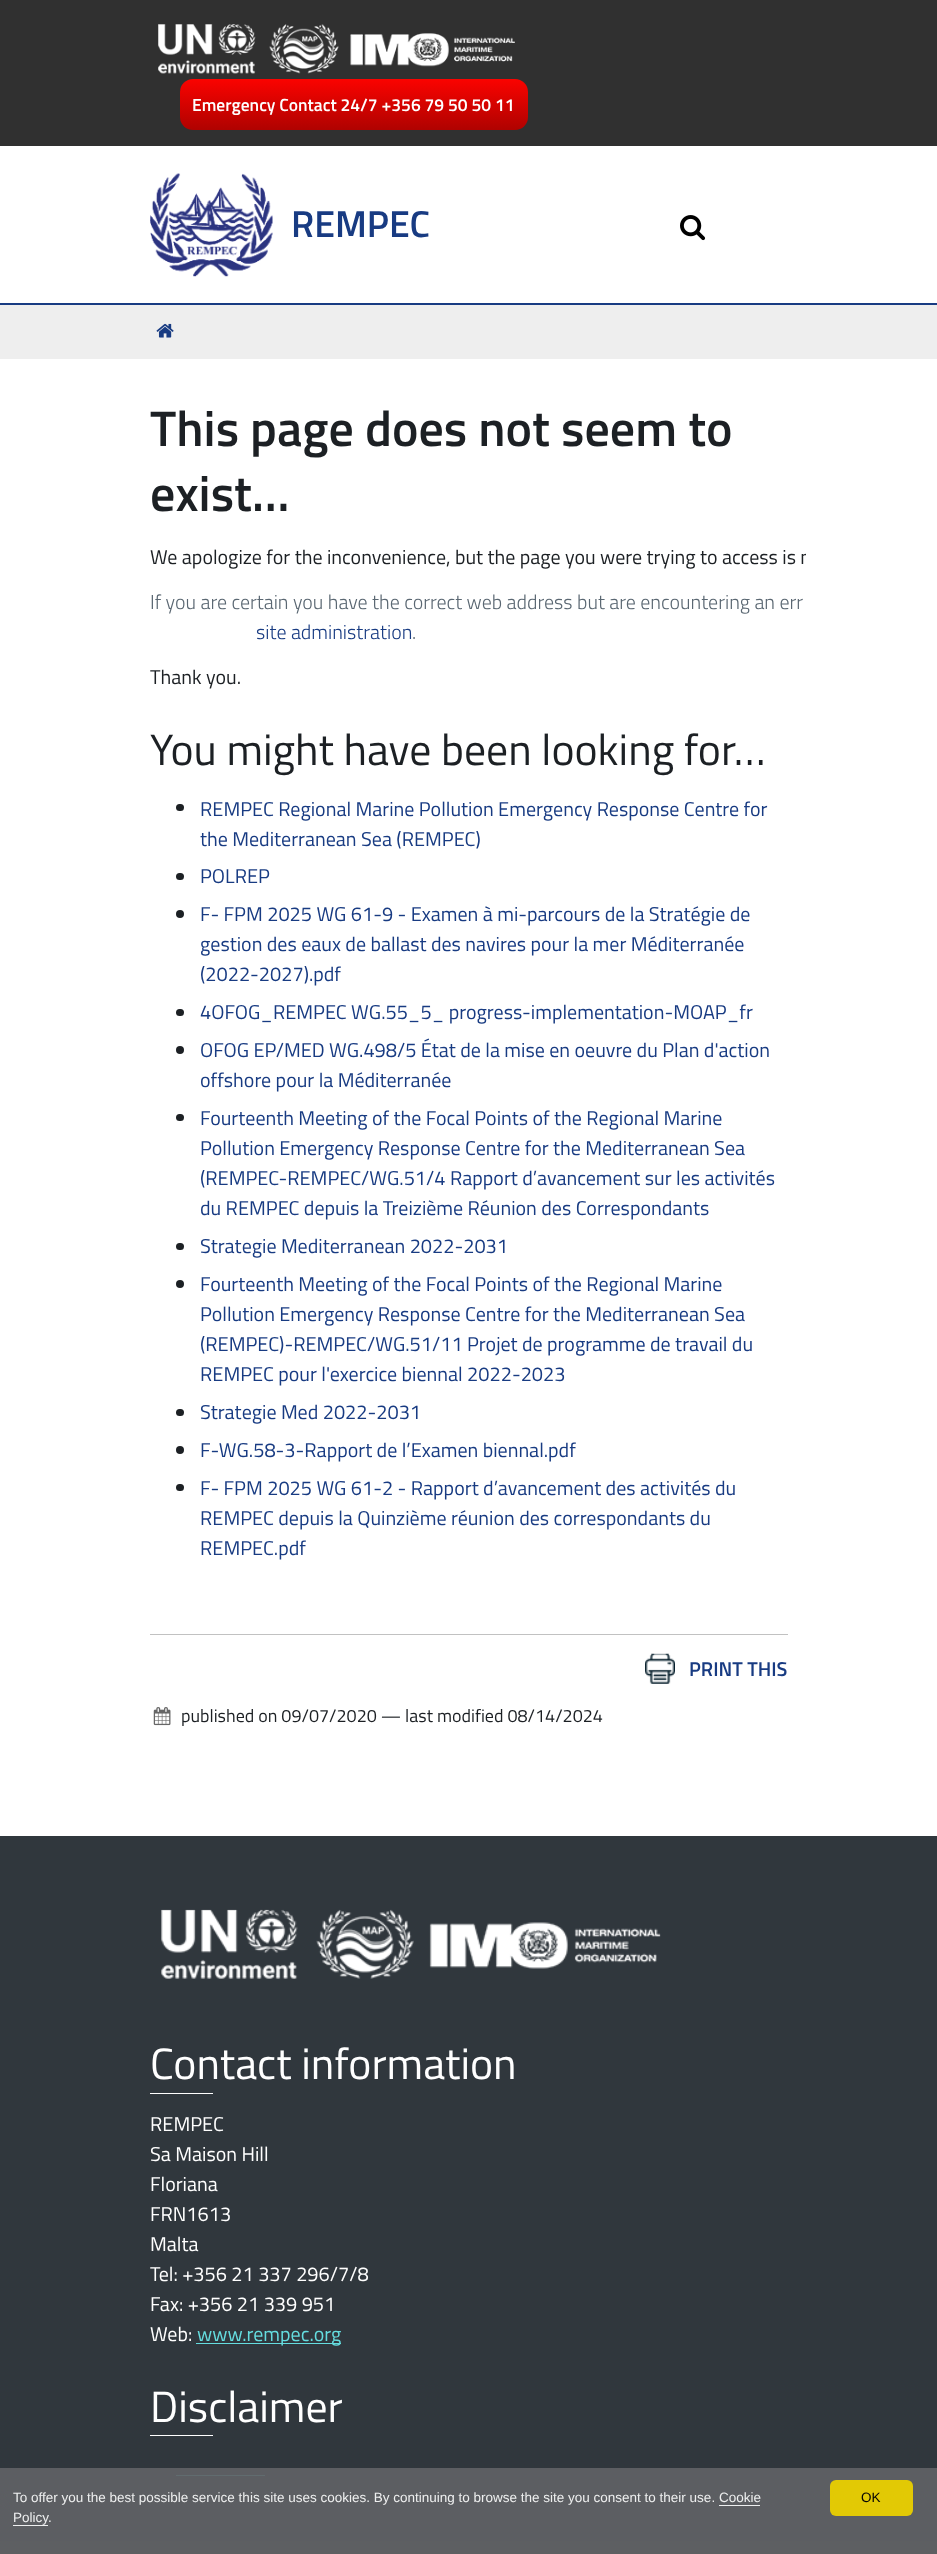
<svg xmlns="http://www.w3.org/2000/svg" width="937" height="2554">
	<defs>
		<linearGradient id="g1" gradientUnits="userSpaceOnUse" x1="354" y1="79" x2="354" y2="130"><stop offset="0" stop-color="#FB0300" /><stop offset="1" stop-color="#AF0200" /></linearGradient>
		<clipPath id="clip1"><rect x="131" y="359" width="675" height="1477" /></clipPath>
	</defs>
	<rect width="100%" height="100%" fill="#FFFFFF" />
	<rect x="0" y="0" width="937" height="146" fill="#303030" />
	<image x="158" y="24" width="357" height="50" href="assets/img1.png" />
	<rect x="180" y="79" width="348" height="51" rx="13" fill="url(#g1)" />
	<text x="192" y="111" font-family="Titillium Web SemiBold" font-size="17.5" font-weight="600" fill="#FFFFFF">Emergency Contact 24/7 +356 79 50 50 11</text>
	<image x="150" y="173" width="123" height="104" href="assets/img2.png" />
	<text x="291" y="237" font-family="Titillium Web SemiBold" font-size="37.5" font-weight="600" fill="#183B82">REMPEC</text>
	<image x="680" y="215" width="26" height="26" href="assets/img3.png" />
	<rect x="0" y="303" width="937" height="2" fill="#183B82" />
	<rect x="0" y="305" width="937" height="54" fill="#EEEEEE" />
	<image x="156" y="323" width="18" height="15" href="assets/img4.png" />
	<g font-family="Titillium Web SemiBold" font-size="50" font-weight="600" fill="#1C2024">
		<text x="150" y="446">This page does not seem to</text>
		<text x="150" y="511">exist…</text>
	</g>
	<g clip-path="url(#clip1)">
		<text x="150" y="564" font-family="Titillium Web" font-size="20" fill="#1C2024">We apologize for the inconvenience, but the page you were trying to access is n</text>
	</g>
	<text x="150" y="609" font-family="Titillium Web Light" font-size="20" font-weight="300" fill="#5A6772">If you are certain you have the correct web address but are encountering an err</text>
	<text x="256" y="639" font-family="Titillium Web Light" font-size="20" font-weight="300" fill="#183B82">site administration</text>
	<text x="412" y="639" font-family="Titillium Web Light" font-size="20" font-weight="300" fill="#5A6772">.</text>
	<text x="150" y="684" font-family="Titillium Web" font-size="20" fill="#1C2024">Thank you.</text>
	<text x="150" y="765" font-family="Titillium Web" font-size="43.75" fill="#1C2024">You might have been looking for…</text>
	<rect x="176" y="804" width="8" height="7" rx="3.5" fill="#1C2024" />
	<g font-family="Titillium Web" font-size="20" fill="#183B82">
		<text x="200" y="816">REMPEC Regional Marine Pollution Emergency Response Centre for</text>
		<text x="200" y="846">the Mediterranean Sea (REMPEC)</text>
	</g>
	<rect x="176" y="873" width="8" height="7" rx="3.5" fill="#1C2024" />
	<text x="200" y="883" font-family="Titillium Web" font-size="20" fill="#183B82">POLREP</text>
	<circle cx="180" cy="914" r="4" fill="#1C2024" />
	<g font-family="Titillium Web" font-size="20" fill="#183B82">
		<text x="200" y="921">F- FPM 2025 WG 61-9 - Examen à mi-parcours de la Stratégie de</text>
		<text x="200" y="951">gestion des eaux de ballast des navires pour la mer Méditerranée</text>
		<text x="200" y="981">(2022-2027).pdf</text>
	</g>
	<rect x="176" y="1009" width="8" height="7" rx="3.5" fill="#1C2024" />
	<text x="200" y="1019" font-family="Titillium Web" font-size="20" fill="#183B82">4OFOG_REMPEC WG.55_5_ progress-implementation-MOAP_fr</text>
	<circle cx="180" cy="1050" r="4" fill="#1C2024" />
	<g font-family="Titillium Web" font-size="20" fill="#183B82">
		<text x="200" y="1057">OFOG EP/MED WG.498/5 État de la mise en oeuvre du Plan d'action</text>
		<text x="200" y="1087">offshore pour la Méditerranée</text>
	</g>
	<rect x="176" y="1114" width="8" height="7" rx="3.5" fill="#1C2024" />
	<g font-family="Titillium Web" font-size="20" fill="#183B82">
		<text x="200" y="1125">Fourteenth Meeting of the Focal Points of the Regional Marine</text>
		<text x="200" y="1155">Pollution Emergency Response Centre for the Mediterranean Sea</text>
		<text x="200" y="1185">(REMPEC-REMPEC/WG.51/4 Rapport d’avancement sur les activités</text>
		<text x="200" y="1215">du REMPEC depuis la Treizième Réunion des Correspondants</text>
	</g>
	<rect x="176" y="1243" width="8" height="7" rx="3.5" fill="#1C2024" />
	<text x="200" y="1253" font-family="Titillium Web" font-size="20" fill="#183B82">Strategie Mediterranean 2022-2031</text>
	<circle cx="180" cy="1284" r="4" fill="#1C2024" />
	<g font-family="Titillium Web" font-size="20" fill="#183B82">
		<text x="200" y="1291">Fourteenth Meeting of the Focal Points of the Regional Marine</text>
		<text x="200" y="1321">Pollution Emergency Response Centre for the Mediterranean Sea</text>
		<text x="200" y="1351">(REMPEC)-REMPEC/WG.51/11 Projet de programme de travail du</text>
		<text x="200" y="1381">REMPEC pour l'exercice biennal 2022-2023</text>
	</g>
	<rect x="176" y="1409" width="8" height="7" rx="3.5" fill="#1C2024" />
	<text x="200" y="1419" font-family="Titillium Web" font-size="20" fill="#183B82">Strategie Med 2022-2031</text>
	<circle cx="180" cy="1450" r="4" fill="#1C2024" />
	<text x="200" y="1457" font-family="Titillium Web" font-size="20" fill="#183B82">F-WG.58-3-Rapport de l’Examen biennal.pdf</text>
	<rect x="176" y="1484" width="8" height="7" rx="3.5" fill="#1C2024" />
	<g font-family="Titillium Web" font-size="20" fill="#183B82">
		<text x="200" y="1495">F- FPM 2025 WG 61-2 - Rapport d’avancement des activités du</text>
		<text x="200" y="1525">REMPEC depuis la Quinzième réunion des correspondants du</text>
		<text x="200" y="1555">REMPEC.pdf</text>
	</g>
	<rect x="150" y="1634" width="638" height="1" fill="#C1C1C1" />
	<image x="645" y="1653" width="30" height="31" href="assets/img5.png" />
	<text x="689" y="1676" font-family="Titillium Web SemiBold" font-size="20" font-weight="600" fill="#183B82">PRINT THIS</text>
	<image x="153" y="1707" width="18" height="19" href="assets/img6.png" />
	<text x="181" y="1722" font-family="Titillium Web" font-size="18" fill="#1C2024">published on 09/07/2020 — last modified 08/14/2024</text>
	<rect x="0" y="1836" width="937" height="718" fill="#30373D" />
	<image x="161" y="1909" width="500" height="70" href="assets/img7.png" />
	<text x="150" y="2079" font-family="Titillium Web" font-size="43.75" fill="#FFFFFF">Contact information</text>
	<rect x="150" y="2093" width="63" height="1" fill="#FFFFFF" />
	<g font-family="Titillium Web" font-size="20" fill="#FFFFFF">
		<text x="150" y="2131">REMPEC</text>
		<text x="150" y="2161">Sa Maison Hill</text>
		<text x="150" y="2191">Floriana</text>
		<text x="150" y="2221">FRN1613</text>
		<text x="150" y="2251">Malta</text>
		<text x="150" y="2281">Tel: +356 21 337 296/7/8</text>
		<text x="150" y="2311">Fax: +356 21 339 951</text>
		<text x="150" y="2341">Web:</text>
	</g>
	<rect x="196" y="2343" width="145" height="1" fill="#65DDE0" />
	<text x="197" y="2341" font-family="Titillium Web" font-size="20" fill="#65DDE0">www.rempec.org</text>
	<text x="150" y="2422" font-family="Titillium Web" font-size="43.75" fill="#FFFFFF">Disclaimer</text>
	<rect x="150" y="2435" width="63" height="1" fill="#FFFFFF" />
	<rect x="176" y="2475" width="89" height="1" fill="#65DDE0" />
	<rect x="0" y="2468" width="937" height="86" fill="#616265" fill-opacity="0.92" />
	<g font-family="Liberation Sans" font-size="13.5" fill="#EEEFEF">
		<text x="13" y="2502">To offer you the best possible service this site uses cookies. By continuing to browse the site you consent to their use. Cookie</text>
		<text x="13" y="2522">Policy</text>
	</g>
	<rect x="719" y="2505" width="41" height="1" fill="#EEEFEF" />
	<rect x="13" y="2525" width="35" height="1" fill="#EEEFEF" />
	<text x="48" y="2522" font-family="Liberation Sans" font-size="13.5" fill="#EEEFEF">.</text>
	<rect x="830" y="2480" width="83" height="36" rx="6" fill="#E2C905" />
	<text x="861" y="2502" font-family="Liberation Sans" font-size="13.5" fill="#040405">OK</text>
</svg>
